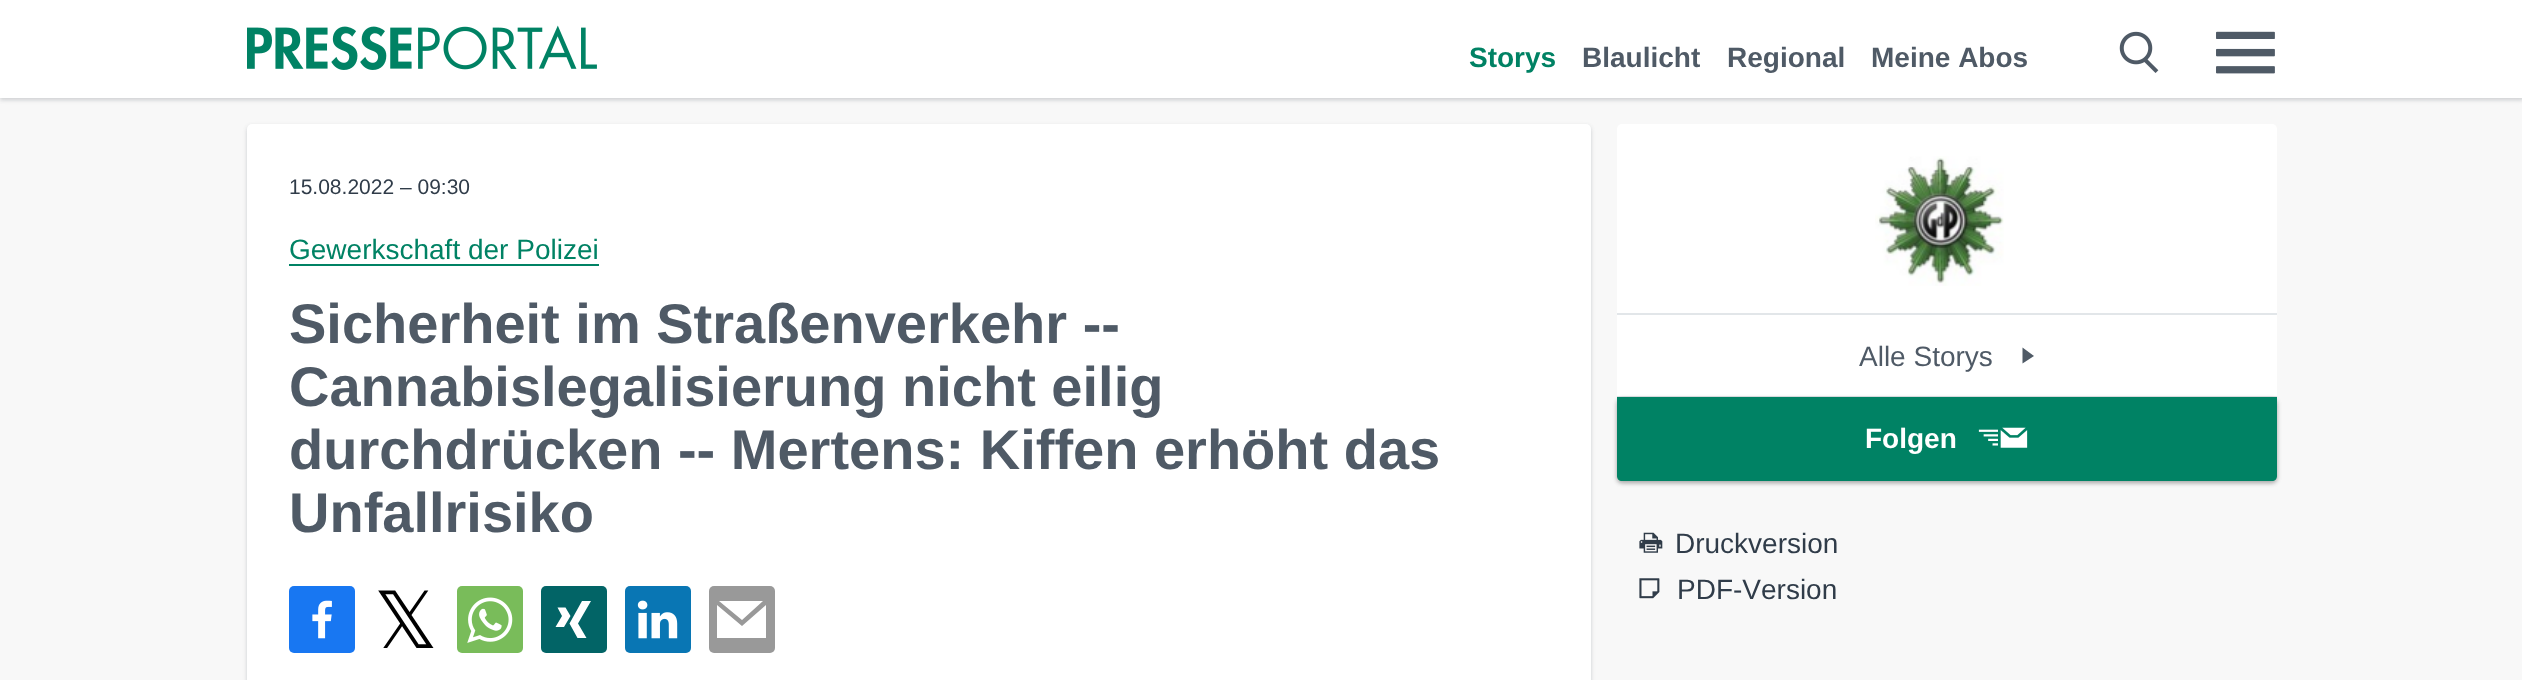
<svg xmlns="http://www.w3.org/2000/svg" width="2522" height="680">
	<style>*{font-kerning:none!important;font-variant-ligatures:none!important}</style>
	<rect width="100%" height="100%" fill="#F8F8F8" />
	<rect x="0" y="2" width="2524" height="98" fill="#4F5A66" fill-opacity="0.16" filter="blur(2px)" />
	<rect x="0" y="2" width="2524" height="98" fill="#4F5A66" fill-opacity="0.1" filter="blur(2px)" />
	<rect x="0" y="0" width="2522" height="98" fill="#FFFFFF" />
	<image x="247" y="25" width="350" height="45" href="assets/img1.png" />
	<text x="1469" y="67" font-family="Liberation Sans" font-size="28" font-weight="700" fill="#008264">Storys</text>
	<g font-family="Liberation Sans" font-size="28" font-weight="700" fill="#4F5A66">
		<text x="1582" y="67">Blaulicht</text>
		<text x="1727" y="67">Regional</text>
		<text x="1871" y="67">Meine Abos</text>
	</g>
	<image x="2119" y="31" width="40" height="42" href="assets/img2.png" />
	<image x="2216" y="31" width="59" height="43" href="assets/img3.png" />
	<rect x="247" y="126" width="1344" height="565" rx="5" fill="#4F5A66" fill-opacity="0.16" filter="blur(2px)" />
	<rect x="247" y="126" width="1344" height="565" rx="5" fill="#4F5A66" fill-opacity="0.1" filter="blur(2px)" />
	<rect x="247" y="124" width="1344" height="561" rx="5" fill="#FFFFFF" />
	<text x="289" y="194" font-family="Liberation Sans" font-size="21" fill="#303C49">15.08.2022 – 09:30</text>
	<text x="289" y="259" font-family="Liberation Sans" font-size="28" fill="#008264">Gewerkschaft der Polizei</text>
	<rect x="289" y="264" width="310" height="2" fill="#008264" />
	<g font-family="Liberation Sans" font-size="56" font-weight="700" fill="#4F5A66">
		<text x="289" y="343">Sicherheit im Straßenverkehr --</text>
		<text x="289" y="406">Cannabislegalisierung nicht eilig</text>
		<text x="289" y="469">durchdrücken -- Mertens: Kiffen erhöht das</text>
		<text x="289" y="532">Unfallrisiko</text>
	</g>
	<rect x="289" y="586" width="66" height="67" rx="5" fill="#1877F2" />
	<image x="312" y="600" width="20" height="39" href="assets/img4.png" />
	<text x="374" y="648" font-family="DejaVu Sans" font-size="79" fill="#000000">𝕏</text>
	<rect x="457" y="586" width="66" height="67" rx="5" fill="#79BC5A" />
	<image x="467" y="597" width="46" height="46" href="assets/img5.png" />
	<rect x="541" y="586" width="66" height="67" rx="5" fill="#026466" />
	<path d="M555.5 627L562 616L557.5 607.5H565.5L570.5 616L564 627ZM586.5 638H577.5L569.5 623.5L582 601H591L578 623.5Z" fill="#FFFFFF" />
	<rect x="625" y="586" width="66" height="67" rx="5" fill="#0976B4" />
	<image x="637" y="600" width="41" height="39" href="assets/img6.png" />
	<rect x="709" y="586" width="66" height="67" rx="5" fill="#999999" />
	<path d="M766 638H717V605L742 626L766 605ZM742 620L719 601H763Z" fill="#FFFFFF" />
	<rect x="1617" y="124" width="660" height="357" rx="5" fill="#FFFFFF" />
	<image x="1875" y="156" width="129" height="130" href="assets/img7.png" />
	<rect x="1617" y="313" width="660" height="2" fill="#E2E6E9" />
	<rect x="1617" y="396" width="660" height="1" fill="#E2E6E9" />
	<text x="1859" y="366" font-family="Liberation Sans" font-size="28" fill="#4F5A66">Alle Storys</text>
	<path d="M2022.5 363.5V347.5L2034 356Z" fill="#4F5A66" />
	<rect x="1617" y="399" width="660" height="84" rx="5" fill="#000000" fill-opacity="0.24" filter="blur(2px)" />
	<rect x="1617" y="399" width="660" height="84" rx="5" fill="#000000" fill-opacity="0.12" filter="blur(2.5px)" />
	<path d="M1617 397H2277V476C2277 479 2275 481 2272 481H1622C1619 481 1617 479 1617 476Z" fill="#008264" />
	<text x="1865" y="448" font-family="Liberation Sans" font-size="28" font-weight="700" fill="#FFFFFF">Folgen</text>
	<image x="1978" y="427" width="50" height="21" href="assets/img8.png" />
	<image x="1639" y="532" width="24" height="21" href="assets/img9.png" />
	<text x="1675" y="553" font-family="Liberation Sans" font-size="28" fill="#303C49">Druckversion</text>
	<image x="1639" y="578" width="21" height="21" href="assets/img10.png" />
	<text x="1677" y="599" font-family="Liberation Sans" font-size="28" fill="#303C49">PDF-Version</text>
</svg>
